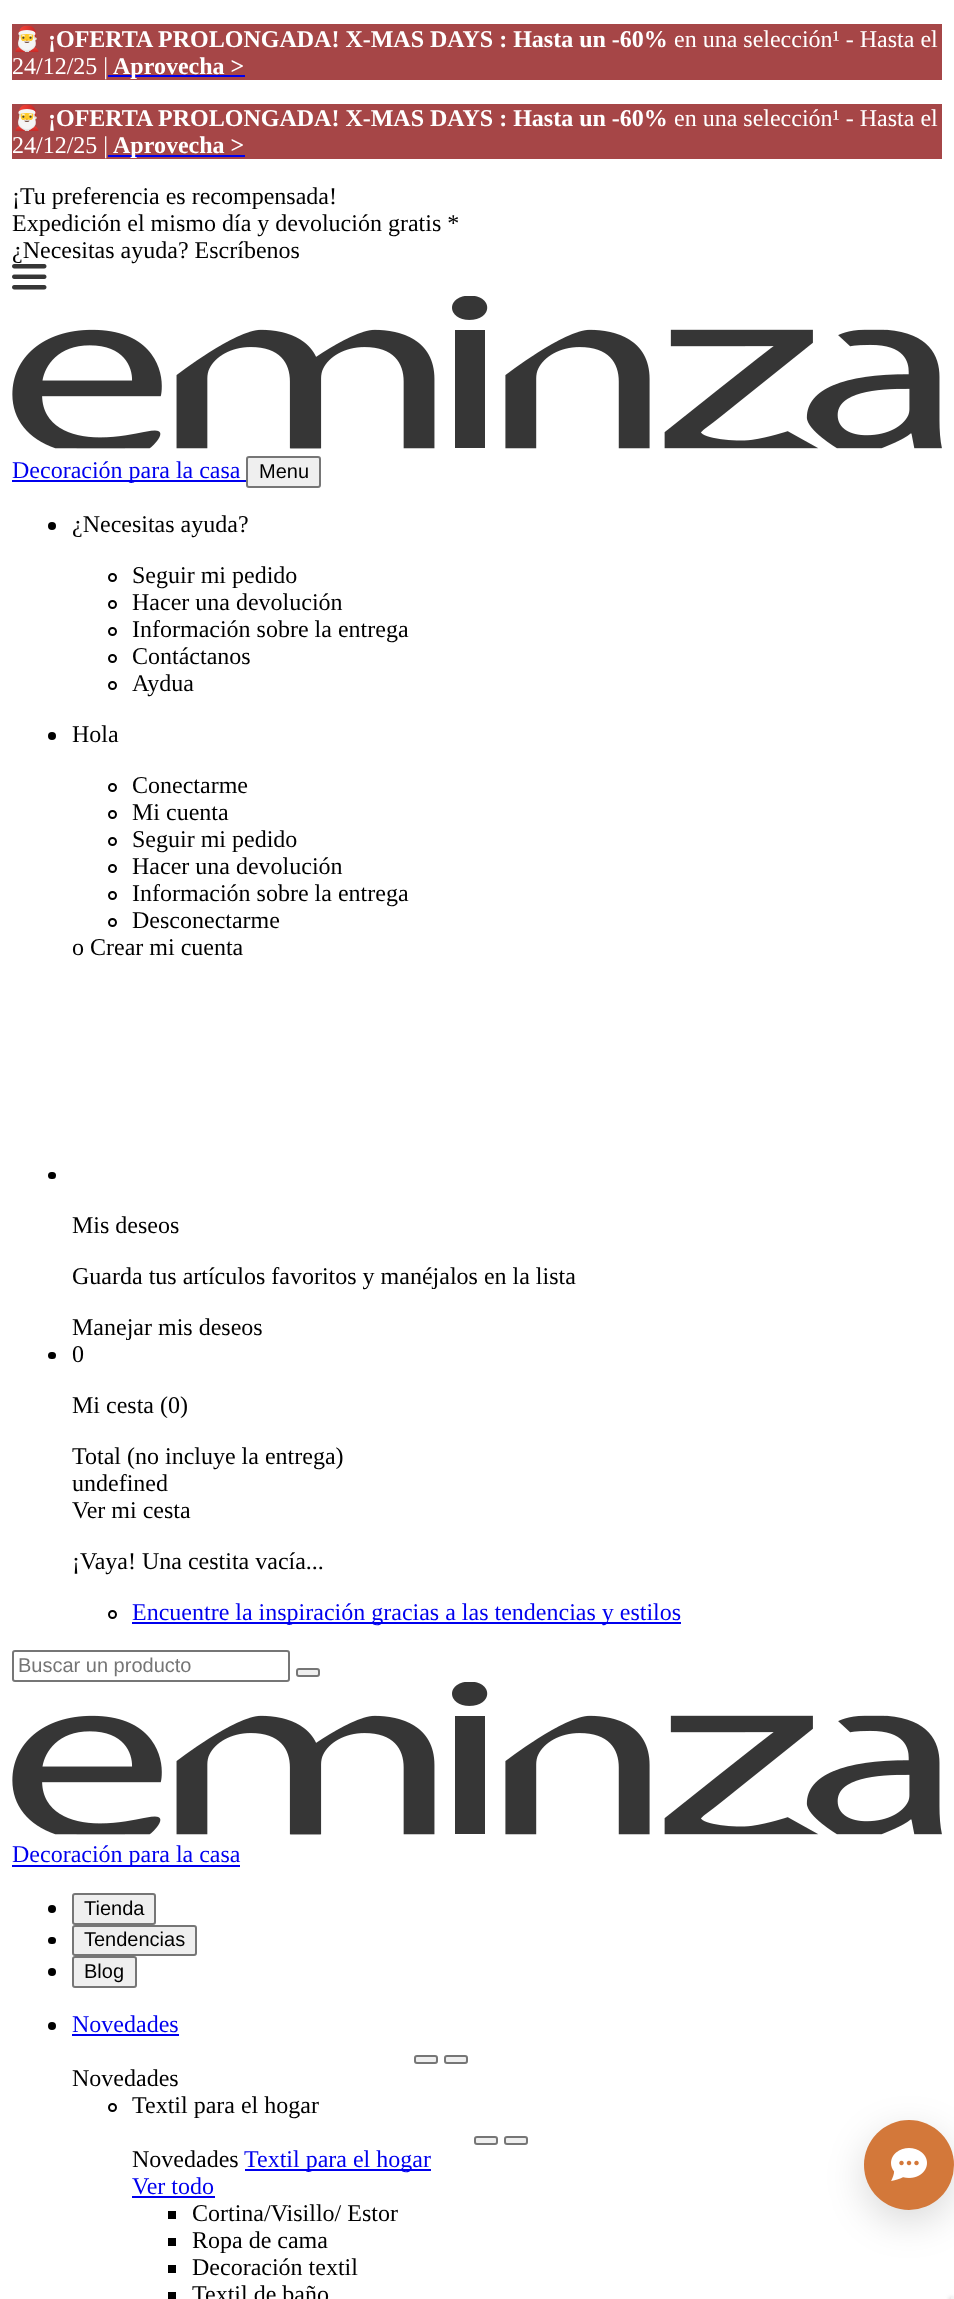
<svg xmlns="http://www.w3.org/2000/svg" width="954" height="2299">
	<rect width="100%" height="100%" fill="#FFFFFF" />
	<rect x="12" y="24" width="930" height="56" fill="#A64647" />
	<text x="12" y="47" font-family="Noto Color Emoji" font-size="24" font-weight="700" fill="#FFFFFF">🎅</text>
	<text x="48" y="47" font-family="Liberation Serif" font-size="24" font-weight="700" fill="#FFFFFF">¡OFERTA PROLONGADA! X-MAS DAYS : Hasta un -60%</text>
	<g font-family="Liberation Serif" font-size="24" fill="#FFFFFF">
		<text x="674" y="47">en una selección¹ - Hasta el</text>
		<text x="12" y="74">24/12/25 |</text>
	</g>
	<rect x="108" y="75" width="137" height="2" fill="#0000EE" />
	<text x="113" y="74" font-family="Liberation Serif" font-size="24" font-weight="700" fill="#FFFFFF">Aprovecha &gt;</text>
	<rect x="12" y="104" width="930" height="55" fill="#A64647" />
	<text x="12" y="126" font-family="Noto Color Emoji" font-size="24" font-weight="700" fill="#FFFFFF">🎅</text>
	<text x="48" y="126" font-family="Liberation Serif" font-size="24" font-weight="700" fill="#FFFFFF">¡OFERTA PROLONGADA! X-MAS DAYS : Hasta un -60%</text>
	<g font-family="Liberation Serif" font-size="24" fill="#FFFFFF">
		<text x="674" y="126">en una selección¹ - Hasta el</text>
		<text x="12" y="153">24/12/25 |</text>
	</g>
	<rect x="108" y="155" width="137" height="2" fill="#0000EE" />
	<text x="113" y="153" font-family="Liberation Serif" font-size="24" font-weight="700" fill="#FFFFFF">Aprovecha &gt;</text>
	<g font-family="Liberation Serif" font-size="24" fill="#000000">
		<text x="12" y="204">¡Tu preferencia es recompensada!</text>
		<text x="12" y="231">Expedición el mismo día y devolución gratis *</text>
		<text x="12" y="258">¿Necesitas ayuda? Escríbenos</text>
	</g>
	<image x="12" y="264" width="35" height="26" href="assets/img1.png" />
	<image x="12" y="296" width="930" height="153" href="assets/img2.png" />
	<rect x="12" y="480" width="234" height="2" fill="#0000EE" />
	<text x="12" y="478" font-family="Liberation Serif" font-size="24" fill="#0000EE">Decoración para la casa</text>
	<rect x="247" y="457" width="73" height="30" rx="2" fill="#EFEFEF" stroke="#767676" stroke-width="2" />
	<text x="259" y="478" font-family="Liberation Sans" font-size="20" fill="#000000">Menu</text>
	<circle cx="52" cy="526" r="4" fill="#000000" />
	<text x="72" y="532" font-family="Liberation Serif" font-size="24" fill="#000000">¿Necesitas ayuda?</text>
	<circle cx="112.5" cy="577.5" r="3.5" fill="none" stroke="#000000" stroke-width="2" />
	<text x="132" y="583" font-family="Liberation Serif" font-size="24" fill="#000000">Seguir mi pedido</text>
	<circle cx="112.5" cy="604.5" r="3.5" fill="none" stroke="#000000" stroke-width="2" />
	<text x="132" y="610" font-family="Liberation Serif" font-size="24" fill="#000000">Hacer una devolución</text>
	<circle cx="112.5" cy="631.5" r="3.5" fill="none" stroke="#000000" stroke-width="2" />
	<text x="132" y="637" font-family="Liberation Serif" font-size="24" fill="#000000">Información sobre la entrega</text>
	<circle cx="112.5" cy="658.5" r="3.5" fill="none" stroke="#000000" stroke-width="2" />
	<text x="132" y="664" font-family="Liberation Serif" font-size="24" fill="#000000">Contáctanos</text>
	<circle cx="112.5" cy="685.5" r="3.5" fill="none" stroke="#000000" stroke-width="2" />
	<text x="132" y="691" font-family="Liberation Serif" font-size="24" fill="#000000">Aydua</text>
	<circle cx="52" cy="736" r="4" fill="#000000" />
	<text x="72" y="742" font-family="Liberation Serif" font-size="24" fill="#000000">Hola</text>
	<circle cx="112.5" cy="787.5" r="3.5" fill="none" stroke="#000000" stroke-width="2" />
	<text x="132" y="793" font-family="Liberation Serif" font-size="24" fill="#000000">Conectarme</text>
	<circle cx="112.5" cy="814.5" r="3.5" fill="none" stroke="#000000" stroke-width="2" />
	<text x="132" y="820" font-family="Liberation Serif" font-size="24" fill="#000000">Mi cuenta</text>
	<circle cx="112.5" cy="841.5" r="3.5" fill="none" stroke="#000000" stroke-width="2" />
	<text x="132" y="847" font-family="Liberation Serif" font-size="24" fill="#000000">Seguir mi pedido</text>
	<circle cx="112.5" cy="868.5" r="3.5" fill="none" stroke="#000000" stroke-width="2" />
	<text x="132" y="874" font-family="Liberation Serif" font-size="24" fill="#000000">Hacer una devolución</text>
	<circle cx="112.5" cy="895.5" r="3.5" fill="none" stroke="#000000" stroke-width="2" />
	<text x="132" y="901" font-family="Liberation Serif" font-size="24" fill="#000000">Información sobre la entrega</text>
	<circle cx="112.5" cy="922.5" r="3.5" fill="none" stroke="#000000" stroke-width="2" />
	<g font-family="Liberation Serif" font-size="24" fill="#000000">
		<text x="132" y="928">Desconectarme</text>
		<text x="72" y="955">o Crear mi cuenta</text>
	</g>
	<rect x="48" y="1172" width="8" height="7" rx="3.5" fill="#000000" />
	<g font-family="Liberation Serif" font-size="24" fill="#000000">
		<text x="72" y="1233">Mis deseos</text>
		<text x="72" y="1284">Guarda tus artículos favoritos y manéjalos en la lista</text>
		<text x="72" y="1335">Manejar mis deseos</text>
	</g>
	<rect x="48" y="1352" width="8" height="7" rx="3.5" fill="#000000" />
	<g font-family="Liberation Serif" font-size="24" fill="#000000">
		<text x="72" y="1362">0</text>
		<text x="72" y="1413">Mi cesta (0)</text>
		<text x="72" y="1464">Total (no incluye la entrega)</text>
		<text x="72" y="1491">undefined</text>
		<text x="72" y="1518">Ver mi cesta</text>
		<text x="72" y="1569">¡Vaya! Una cestita vacía...</text>
	</g>
	<circle cx="112.5" cy="1614.5" r="3.5" fill="none" stroke="#000000" stroke-width="2" />
	<rect x="132" y="1622" width="549" height="2" fill="#0000EE" />
	<text x="132" y="1620" font-family="Liberation Serif" font-size="24" fill="#0000EE">Encuentre la inspiración gracias a las tendencias y estilos</text>
	<rect x="13" y="1651" width="276" height="30" rx="2" fill="none" stroke="#767676" stroke-width="2" />
	<text x="18" y="1672" font-family="Liberation Sans" font-size="20" fill="#757575">Buscar un producto</text>
	<rect x="297" y="1669" width="22" height="7" rx="2" fill="#EFEFEF" stroke="#767676" stroke-width="2" />
	<image x="12" y="1682" width="930" height="153" href="assets/img2.png" />
	<rect x="12" y="1865" width="228" height="2" fill="#0000EE" />
	<text x="12" y="1862" font-family="Liberation Serif" font-size="24" fill="#0000EE">Decoración para la casa</text>
	<circle cx="52" cy="1909" r="4" fill="#000000" />
	<rect x="73" y="1894" width="82" height="30" rx="2" fill="#EFEFEF" stroke="#767676" stroke-width="2" />
	<text x="84" y="1915" font-family="Liberation Sans" font-size="20" fill="#000000">Tienda</text>
	<rect x="48" y="1937" width="8" height="7" rx="3.5" fill="#000000" />
	<rect x="73" y="1926" width="123" height="29" rx="2" fill="#EFEFEF" stroke="#767676" stroke-width="2" />
	<text x="84" y="1946" font-family="Liberation Sans" font-size="20" fill="#000000">Tendencias</text>
	<circle cx="52" cy="1972" r="4" fill="#000000" />
	<rect x="73" y="1957" width="63" height="30" rx="2" fill="#EFEFEF" stroke="#767676" stroke-width="2" />
	<text x="84" y="1978" font-family="Liberation Sans" font-size="20" fill="#000000">Blog</text>
	<circle cx="52" cy="2026" r="4" fill="#000000" />
	<text x="72" y="2032" font-family="Liberation Serif" font-size="24" fill="#0000EE">Novedades</text>
	<rect x="72" y="2034" width="107" height="2" fill="#0000EE" />
	<rect x="415" y="2056" width="22" height="7" rx="2" fill="#EFEFEF" stroke="#767676" stroke-width="2" />
	<rect x="445" y="2056" width="22" height="7" rx="2" fill="#EFEFEF" stroke="#767676" stroke-width="2" />
	<text x="72" y="2086" font-family="Liberation Serif" font-size="24" fill="#000000">Novedades</text>
	<circle cx="112.5" cy="2107.5" r="3.5" fill="none" stroke="#000000" stroke-width="2" />
	<text x="132" y="2113" font-family="Liberation Serif" font-size="24" fill="#000000">Textil para el hogar</text>
	<rect x="475" y="2137" width="22" height="7" rx="2" fill="#EFEFEF" stroke="#767676" stroke-width="2" />
	<rect x="505" y="2137" width="22" height="7" rx="2" fill="#EFEFEF" stroke="#767676" stroke-width="2" />
	<text x="132" y="2167" font-family="Liberation Serif" font-size="24" fill="#000000">Novedades</text>
	<rect x="245" y="2169" width="186" height="2" fill="#0000EE" />
	<g font-family="Liberation Serif" font-size="24" fill="#0000EE">
		<text x="244" y="2167">Textil para el hogar</text>
		<text x="132" y="2194">Ver todo</text>
	</g>
	<rect x="132" y="2196" width="83" height="2" fill="#0000EE" />
	<rect x="168" y="2211" width="8" height="8" fill="#000000" />
	<text x="192" y="2221" font-family="Liberation Serif" font-size="24" fill="#000000">Cortina/Visillo/ Estor</text>
	<rect x="168" y="2238" width="8" height="8" fill="#000000" />
	<text x="192" y="2248" font-family="Liberation Serif" font-size="24" fill="#000000">Ropa de cama</text>
	<rect x="168" y="2265" width="8" height="8" fill="#000000" />
	<text x="192" y="2275" font-family="Liberation Serif" font-size="24" fill="#000000">Decoración textil</text>
	<rect x="168" y="2292" width="8" height="7" fill="#000000" />
	<text x="192" y="2302" font-family="Liberation Serif" font-size="24" fill="#000000">Textil de baño</text>
	<rect x="950" y="2298" width="3" height="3" fill="#A2A2A2" filter="blur(2px)" />
	<rect x="951" y="2297" width="3" height="2" fill="#F5F5F5" />
	<rect x="864" y="2132" width="90" height="90" rx="45" fill="#000000" fill-opacity="0.15" filter="blur(19px)" />
	<circle cx="909" cy="2165" r="45" fill="#D3783A" />
	<image x="891" y="2148" width="36" height="33" href="assets/img3.png" />
</svg>
